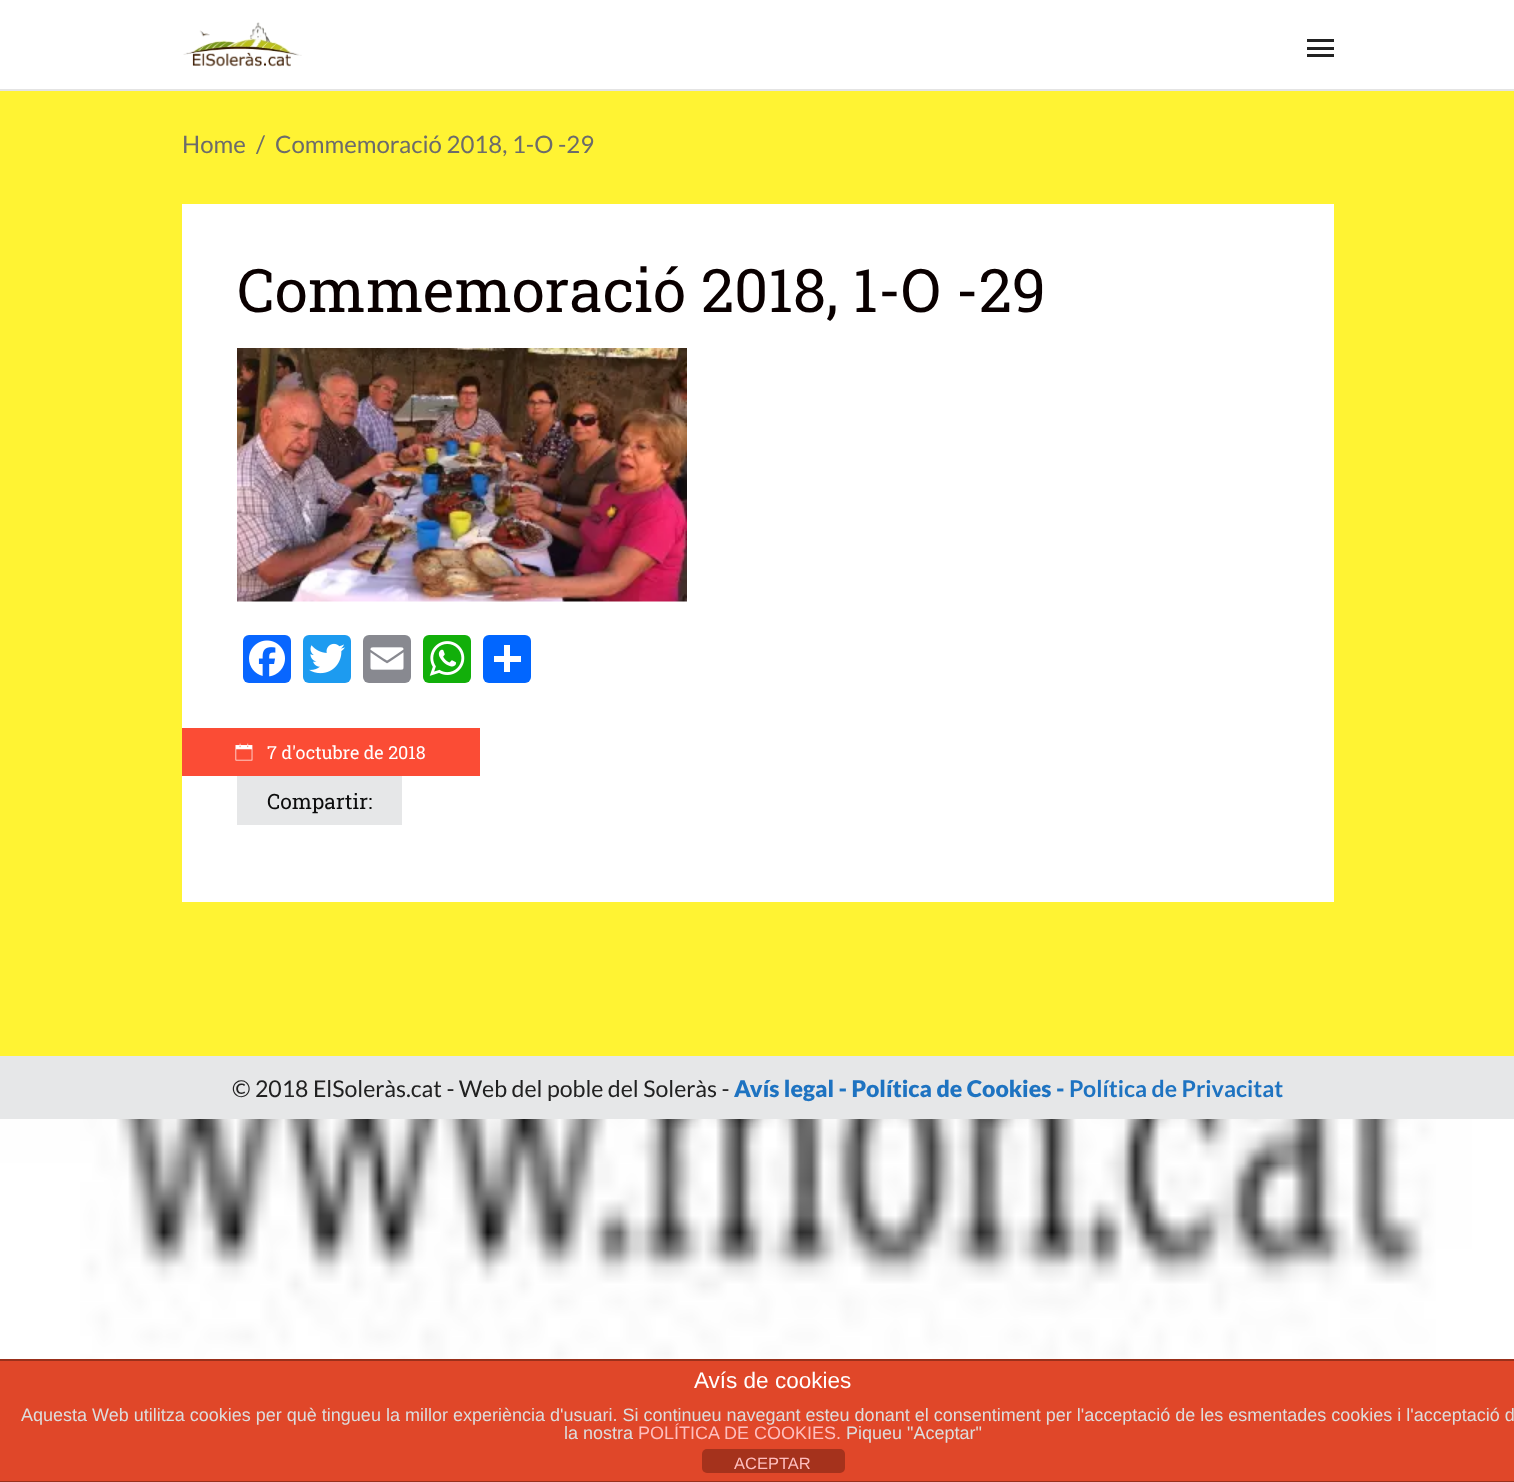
<svg xmlns="http://www.w3.org/2000/svg" width="1514" height="1482">
	<rect width="100%" height="100%" fill="#FFFFFF" />
	<rect x="0" y="91" width="1514" height="965" fill="#FFF333" />
	<rect x="0" y="89" width="1514" height="2" fill="#E4E4E4" />
	<image x="183" y="22" width="119" height="45" href="assets/img1.png" />
	<rect x="1307" y="39" width="27" height="3" fill="#222222" />
	<rect x="1307" y="47" width="27" height="3" fill="#222222" />
	<rect x="1307" y="54" width="27" height="3" fill="#222222" />
	<g font-family="Lato" font-size="24" fill="#6C6B6B">
		<text x="182" y="153">Home</text>
		<text x="256" y="153">/</text>
		<text x="275" y="153">Commemoració 2018, 1-O -29</text>
	</g>
	<rect x="182" y="204" width="1152" height="698" fill="#FFFFFF" />
	<text x="237" y="312" font-family="Roboto Slab" font-size="60" fill="#0A0000">Commemoració 2018, 1-O -29</text>
	<image x="237" y="348" width="450" height="254" href="assets/img2.png" />
	<rect x="243" y="635" width="48" height="48" rx="6" fill="#0866FF" />
	<image x="249" y="640" width="36" height="37" href="assets/img3.png" />
	<rect x="303" y="635" width="48" height="48" rx="6" fill="#1D9BF0" />
	<image x="309" y="643" width="36" height="31" href="assets/img4.png" />
	<rect x="363" y="635" width="48" height="48" rx="6" fill="#888990" />
	<image x="370" y="647" width="34" height="23" href="assets/img5.png" />
	<rect x="423" y="635" width="48" height="48" rx="6" fill="#12AF0A" />
	<image x="429" y="641" width="36" height="35" href="assets/img6.png" />
	<rect x="483" y="635" width="48" height="48" rx="6" fill="#0166FF" />
	<rect x="504" y="645" width="6" height="27" fill="#FFFFFF" />
	<rect x="494" y="656" width="27" height="6" fill="#FFFFFF" />
	<rect x="182" y="728" width="298" height="48" fill="#FB4C35" />
	<image x="235" y="743" width="18" height="18" href="assets/img7.png" />
	<text x="267" y="759" font-family="Roboto Slab" font-size="18" fill="#FFFFFF">7 d'octubre de 2018</text>
	<rect x="237" y="776" width="165" height="49" fill="#E6E7E8" />
	<text x="267" y="809" font-family="Roboto Slab" font-size="21" fill="#0D0D0D">Compartir:</text>
	<rect x="0" y="1056" width="1514" height="63" fill="#E6E7E8" />
	<text x="232" y="1097" font-family="Lato" font-size="23.1" fill="#212121">© 2018 ElSoleràs.cat - Web del poble del Soleràs -</text>
	<text x="734" y="1097" font-family="Lato" font-size="23.1" font-weight="900" fill="#1E73C1">Avís legal - Política de Cookies -</text>
	<text x="1069" y="1097" font-family="Lato" font-size="23.1" font-weight="700" fill="#1E73C1">Política de Privacitat</text>
	<image x="0" y="1119" width="1514" height="240" href="assets/img8.png" />
	<rect x="0" y="1361" width="1514" height="120" fill="#E04729" />
	<rect x="0" y="1359" width="1514" height="2" fill="#99301B" />
	<rect x="0" y="1481" width="1514" height="1" fill="#99301B" />
	<text x="694" y="1388" font-family="Liberation Sans" font-size="22.5" fill="#FFFFFF">Avís de cookies</text>
	<g font-family="Liberation Sans" font-size="18" fill="#DDDDDD">
		<text x="21" y="1421">Aquesta Web utilitza cookies per què tingueu la millor experiència d'usuari. Si continueu navegant esteu donant el consentiment per l'acceptació de les esmentades cookies i l'acceptació d</text>
		<text x="564" y="1439">la nostra</text>
	</g>
	<text x="638" y="1439" font-family="Liberation Sans" font-size="18" fill="#FEBEBE">POLÍTICA DE COOKIES.</text>
	<text x="846" y="1439" font-family="Liberation Sans" font-size="18" fill="#DDDDDD">Piqueu "Aceptar"</text>
	<rect x="702" y="1449" width="143" height="24" rx="5" fill="#A5321C" />
	<text x="734" y="1469" font-family="Liberation Sans" font-size="16.5" fill="#FEBEBE">ACEPTAR</text>
</svg>
